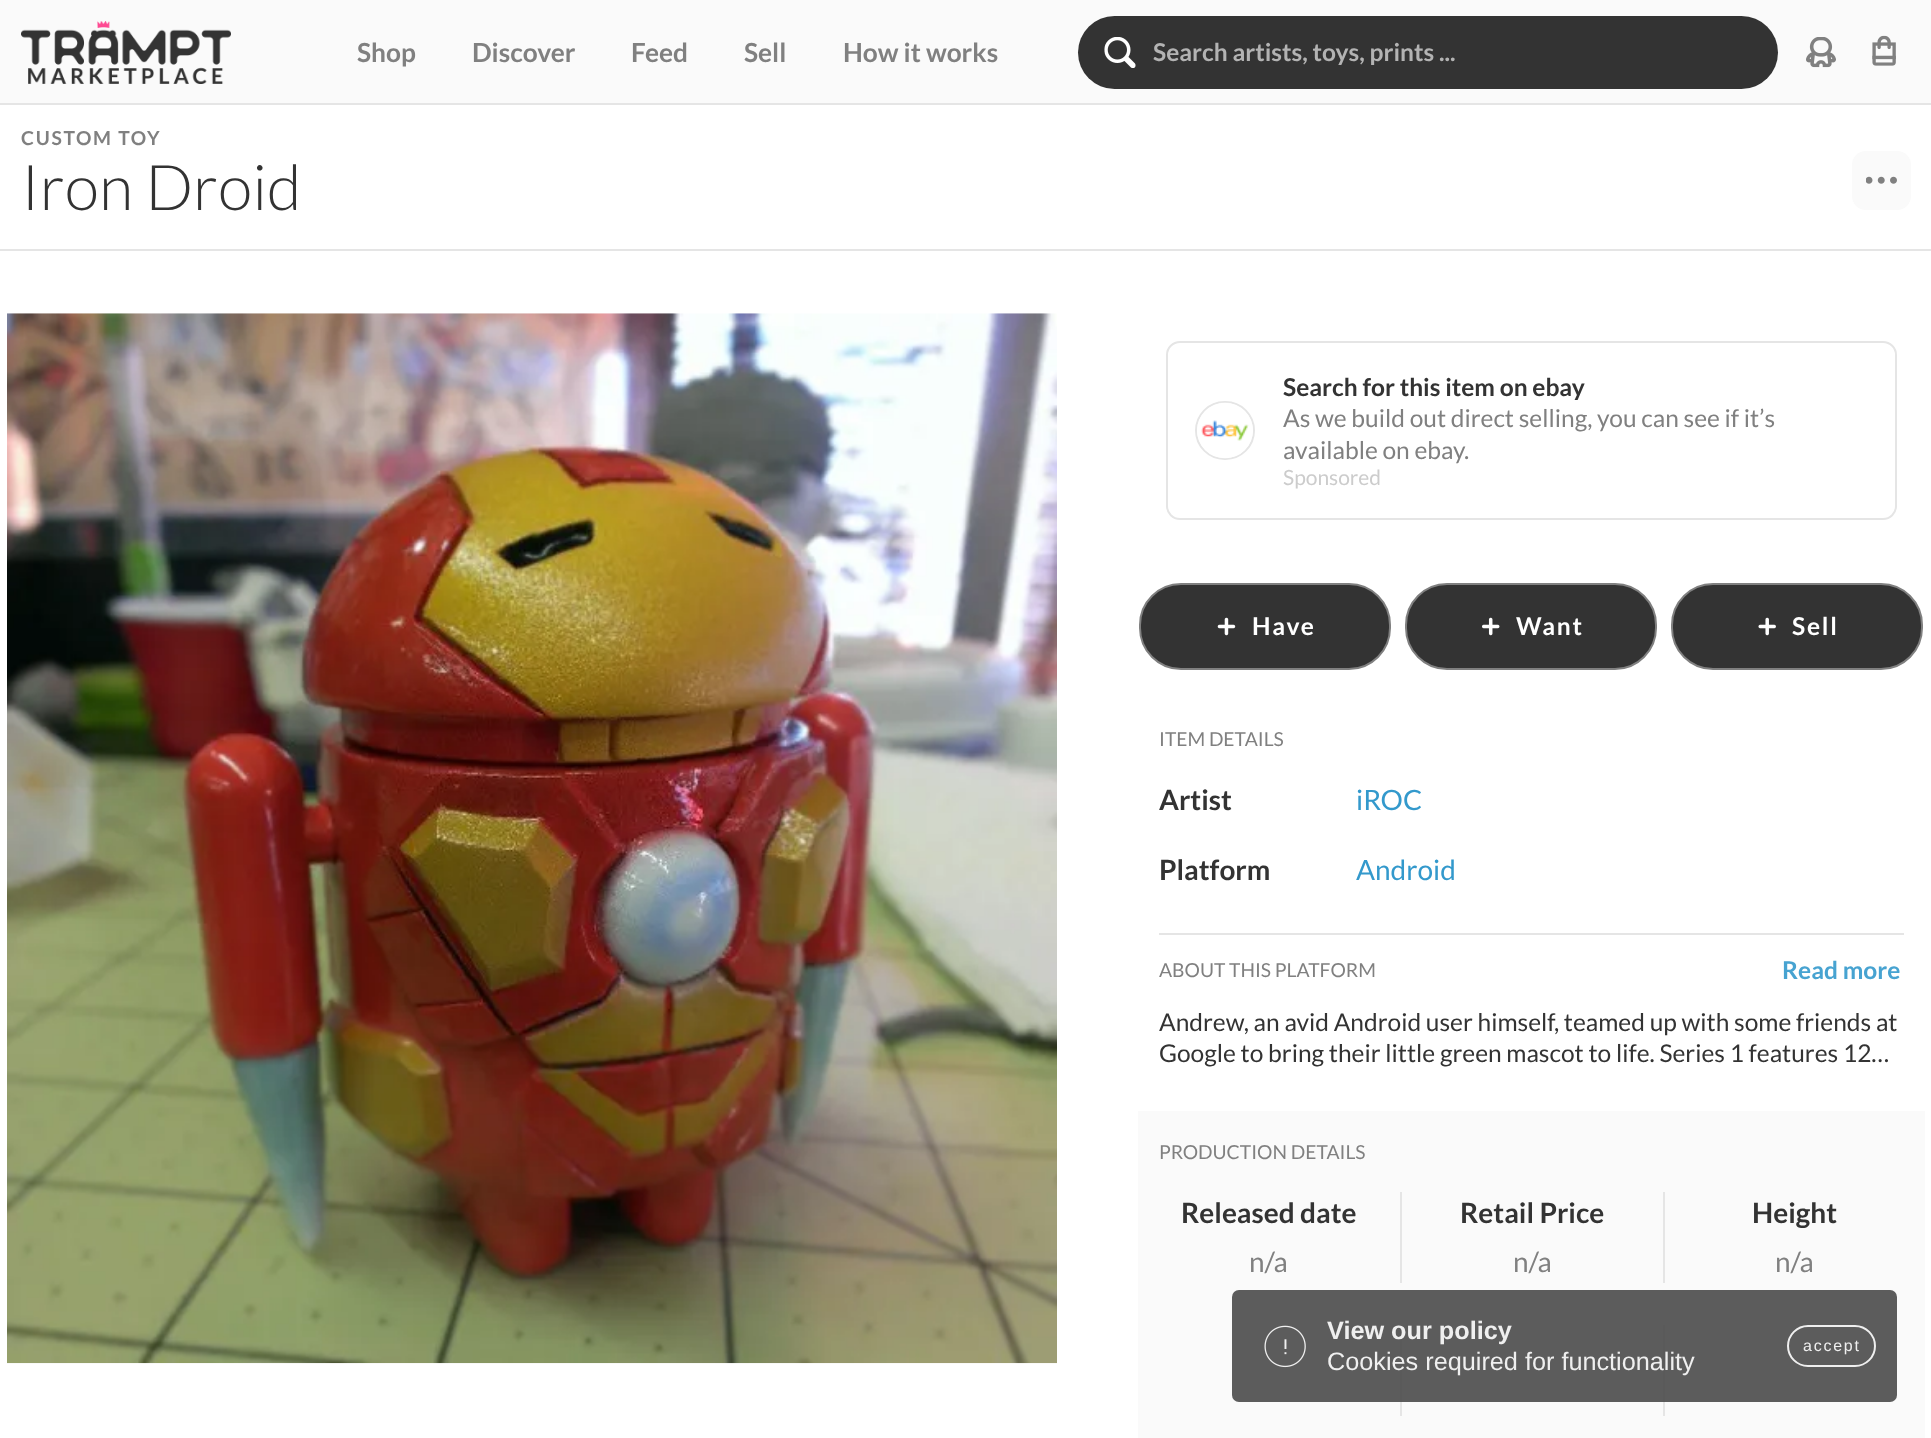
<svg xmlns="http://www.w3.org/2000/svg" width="1931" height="1438">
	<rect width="100%" height="100%" fill="#FFFFFF" />
	<rect x="0" y="0" width="1931" height="103" fill="#FAFAFA" />
	<rect x="0" y="103" width="1931" height="2" fill="#E5E5E5" />
	<image x="21" y="21" width="210" height="63" href="assets/img1.png" />
	<g font-family="Lato" font-size="26.25" font-weight="700" fill="#808080">
		<text x="357" y="62">Shop</text>
		<text x="472" y="62">Discover</text>
		<text x="631" y="62">Feed</text>
		<text x="744" y="62">Sell</text>
		<text x="843" y="62">How it works</text>
	</g>
	<rect x="1078" y="16" width="700" height="73" rx="36.5" fill="#333333" />
	<image x="1104" y="37" width="32" height="31" href="assets/img2.png" />
	<text x="1153" y="61" font-family="Lato" font-size="24.5" font-weight="700" fill="#B3B3B3">Search artists, toys, prints ...</text>
	<image x="1806" y="37" width="30" height="31" href="assets/img3.png" />
	<image x="1872" y="35" width="24" height="31" href="assets/img4.png" />
	<rect x="0" y="249" width="1931" height="2" fill="#E5E5E5" />
	<text x="21" y="145" font-family="Lato" font-size="19.25" font-weight="700" letter-spacing="1.75" fill="#808080">CUSTOM TOY</text>
	<text x="21" y="210" font-family="Lato" font-size="63" font-weight="300" fill="#333333">Iron Droid</text>
	<rect x="1852" y="151" width="59" height="59" rx="14" fill="#FAFAFA" />
	<image x="1866" y="176" width="31" height="8" href="assets/img5.png" />
	<image x="7" y="313" width="1050" height="1051" href="assets/img6.png" />
	<rect x="1167" y="342" width="729" height="177" rx="13" fill="none" stroke="#E5E5E5" stroke-width="2" />
	<rect x="1196" y="402" width="58" height="57" rx="28.5" fill="none" stroke="#E5E5E5" stroke-width="2" />
	<image x="1197" y="402" width="56" height="57" href="assets/img7.png" />
	<text x="1283" y="396" font-family="Lato" font-size="24.5" font-weight="700" fill="#333333">Search for this item on ebay</text>
	<g font-family="Lato" font-size="24.5" fill="#808080">
		<text x="1283" y="427">As we build out direct selling, you can see if it’s</text>
		<text x="1283" y="459">available on ebay.</text>
	</g>
	<text x="1283" y="485" font-family="Lato" font-size="21" fill="#CCCCCC">Sponsored</text>
	<rect x="1140" y="584" width="250" height="85" rx="41" fill="#333333" stroke="#808080" stroke-width="2" />
	<image x="1217" y="617" width="19" height="19" href="assets/img8.png" />
	<text x="1252" y="635" font-family="Lato" font-size="24.5" font-weight="700" letter-spacing="1.75" fill="#FFFFFF">Have</text>
	<rect x="1406" y="584" width="250" height="85" rx="41" fill="#333333" stroke="#808080" stroke-width="2" />
	<image x="1482" y="617" width="18" height="19" href="assets/img9.png" />
	<text x="1516" y="635" font-family="Lato" font-size="24.5" font-weight="700" letter-spacing="1.75" fill="#FFFFFF">Want</text>
	<rect x="1672" y="584" width="250" height="85" rx="41" fill="#333333" stroke="#808080" stroke-width="2" />
	<image x="1758" y="617" width="18" height="19" href="assets/img10.png" />
	<text x="1792" y="635" font-family="Lato" font-size="24.5" font-weight="700" letter-spacing="1.75" fill="#FFFFFF">Sell</text>
	<text x="1159" y="746" font-family="Lato" font-size="19.25" fill="#808080">ITEM DETAILS</text>
	<text x="1159" y="810" font-family="Lato" font-size="28" font-weight="700" fill="#333333">Artist</text>
	<text x="1356" y="810" font-family="Lato" font-size="28" fill="#3399CC">iROC</text>
	<text x="1159" y="880" font-family="Lato" font-size="28" font-weight="700" fill="#333333">Platform</text>
	<text x="1356" y="880" font-family="Lato" font-size="28" fill="#3399CC">Android</text>
	<rect x="1159" y="933" width="745" height="2" fill="#E5E5E5" />
	<text x="1159" y="977" font-family="Lato" font-size="19.25" fill="#808080">ABOUT THIS PLATFORM</text>
	<text x="1782" y="979" font-family="Lato" font-size="24.5" font-weight="700" fill="#47A3D1">Read more</text>
	<g font-family="Lato" font-size="24.5" fill="#333333">
		<text x="1159" y="1031">Andrew, an avid Android user himself, teamed up with some friends at</text>
		<text x="1159" y="1062">Google to bring their little green mascot to life. Series 1 features 12…</text>
	</g>
	<rect x="1138" y="1111" width="787" height="327" fill="#FAFAFA" />
	<text x="1159" y="1159" font-family="Lato" font-size="19.25" fill="#808080">PRODUCTION DETAILS</text>
	<text x="1181" y="1223" font-family="Lato" font-size="28" font-weight="700" fill="#333333">Released date</text>
	<text x="1249" y="1272" font-family="Lato" font-size="28" fill="#808080">n/a</text>
	<rect x="1400" y="1192" width="2" height="91" fill="#E5E5E5" />
	<text x="1460" y="1223" font-family="Lato" font-size="28" font-weight="700" fill="#333333">Retail Price</text>
	<text x="1513" y="1272" font-family="Lato" font-size="28" fill="#808080">n/a</text>
	<rect x="1663" y="1192" width="2" height="91" fill="#E5E5E5" />
	<text x="1752" y="1223" font-family="Lato" font-size="28" font-weight="700" fill="#333333">Height</text>
	<text x="1775" y="1272" font-family="Lato" font-size="28" fill="#808080">n/a</text>
	<rect x="1400" y="1325" width="2" height="91" fill="#E5E5E5" />
	<rect x="1663" y="1325" width="2" height="91" fill="#E5E5E5" />
	<rect x="1232" y="1290" width="665" height="112" rx="7" fill="#4A4A4A" fill-opacity="0.9" />
	<image x="1264" y="1325" width="42" height="43" href="assets/img11.png" />
	<text x="1327" y="1339" font-family="Liberation Sans" font-size="25.25" font-weight="700" fill="#EFEFEF">View our policy</text>
	<text x="1327" y="1370" font-family="Liberation Sans" font-size="25.25" fill="#EFEFEF">Cookies required for functionality</text>
	<rect x="1788" y="1326" width="87" height="40" rx="20" fill="none" stroke="#FFFFFF" stroke-opacity="0.9" stroke-width="2" />
	<text x="1803" y="1351" font-family="Liberation Sans" font-size="16" letter-spacing="1.75" fill="#EFEFEF">accept</text>
</svg>
